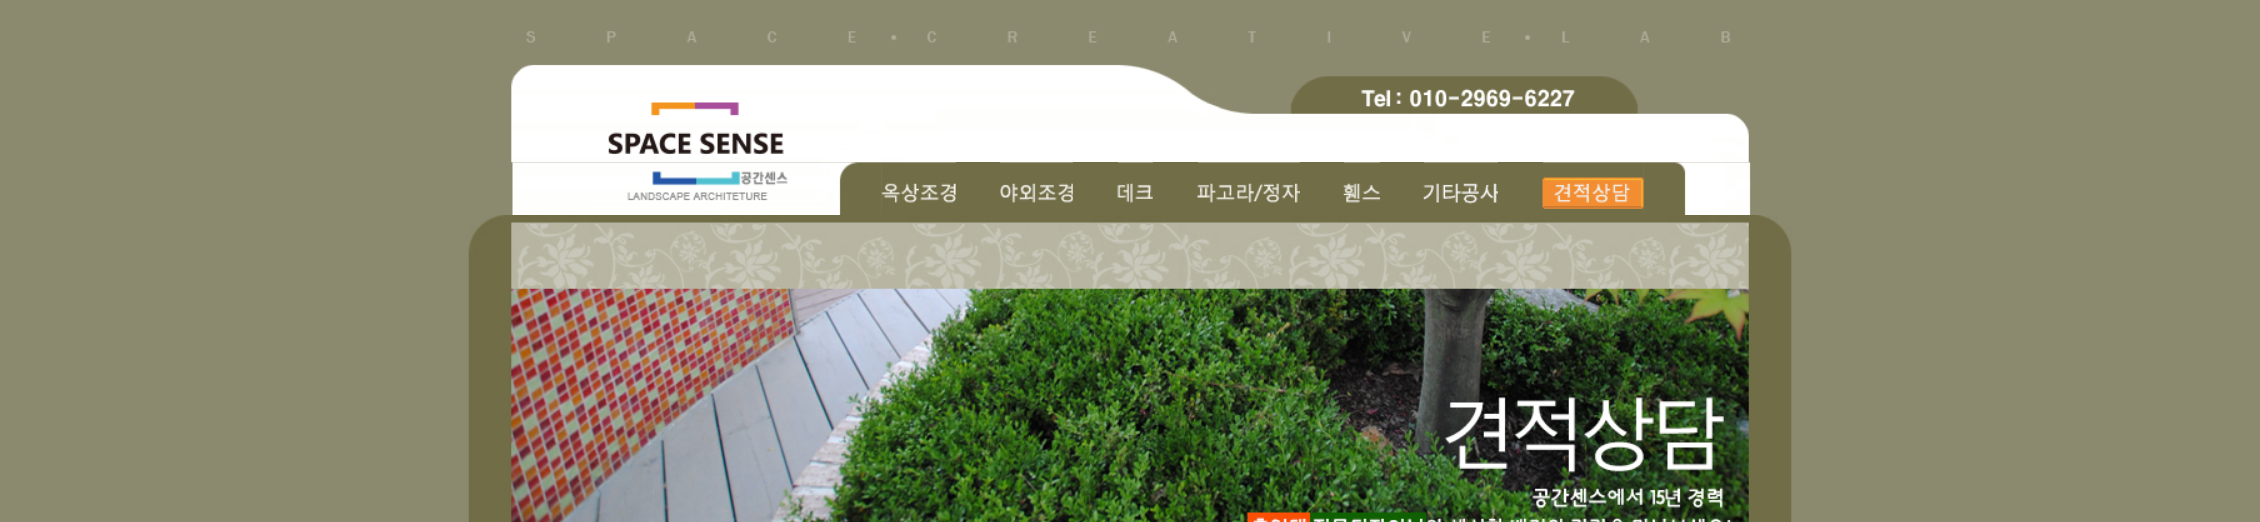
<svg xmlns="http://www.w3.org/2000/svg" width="2260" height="522">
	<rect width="100%" height="100%" fill="#8B896E" />
	<image x="511" y="31" width="1238" height="132" href="assets/img1.png" />
	<image x="511" y="162" width="371" height="53" href="assets/img2.png" />
	<image x="881" y="162" width="75" height="53" href="assets/img3.png" />
	<rect x="956" y="162" width="44" height="53" fill="#716D46" />
	<image x="1000" y="162" width="73" height="53" href="assets/img4.png" />
	<rect x="1073" y="162" width="45" height="53" fill="#716D46" />
	<image x="1117" y="162" width="36" height="53" href="assets/img5.png" />
	<rect x="1153" y="162" width="45" height="53" fill="#716D46" />
	<image x="1197" y="162" width="103" height="53" href="assets/img6.png" />
	<rect x="1300" y="162" width="44" height="53" fill="#716D46" />
	<image x="1343" y="162" width="37" height="53" href="assets/img7.png" />
	<rect x="1380" y="162" width="44" height="53" fill="#716D46" />
	<image x="1423" y="162" width="75" height="53" href="assets/img8.png" />
	<rect x="1498" y="162" width="45" height="53" fill="#716D46" />
	<image x="1542" y="162" width="102" height="53" href="assets/img9.png" />
	<image x="1643" y="162" width="108" height="53" href="assets/img10.png" />
	<image x="468" y="215" width="1324" height="307" href="assets/img11.png" />
</svg>
